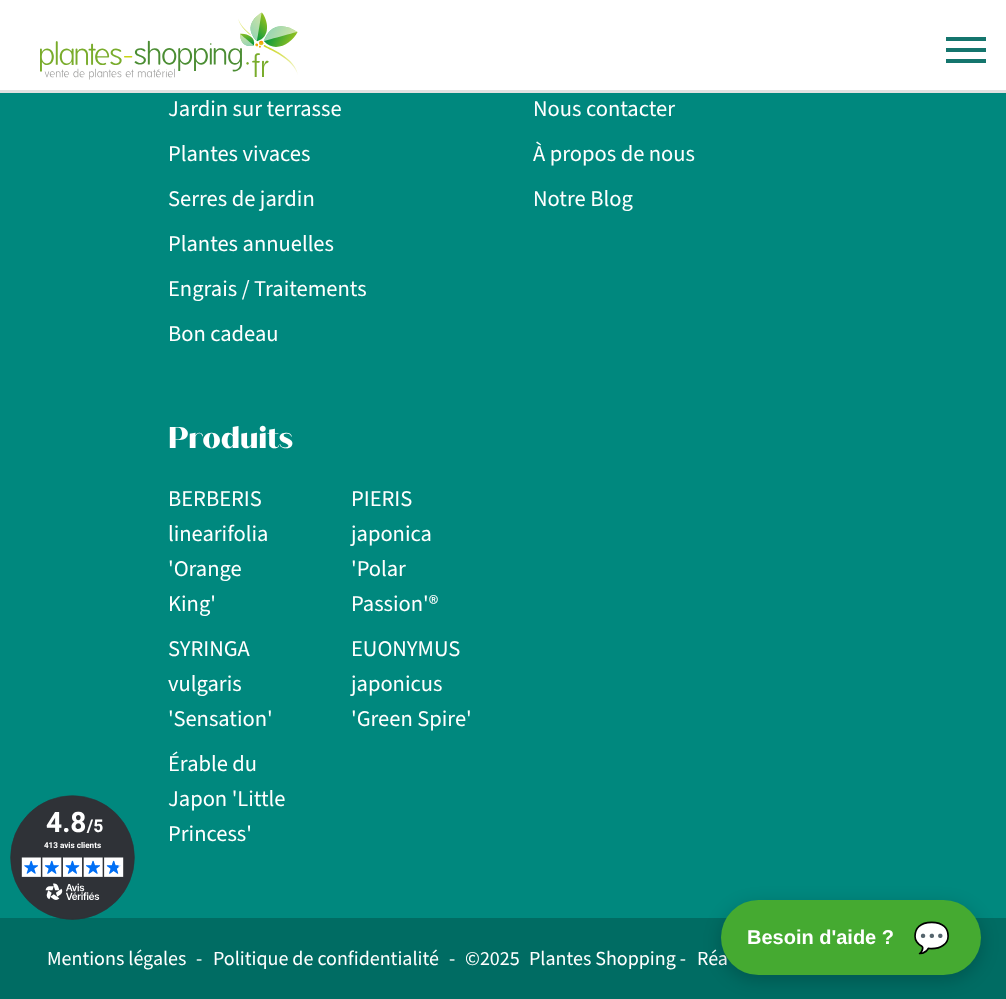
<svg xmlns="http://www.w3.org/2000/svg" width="1006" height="999">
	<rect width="100%" height="100%" fill="#00887E" />
	<rect x="0" y="0" width="1006" height="90" fill="#FFFFFF" />
	<rect x="0" y="90" width="1006" height="3" fill="#E0E0E0" />
	<image x="40" y="12" width="258" height="68" href="assets/img1.png" />
	<rect x="946" y="59" width="40" height="4" fill="#14756D" />
	<rect x="946" y="48" width="40" height="4" fill="#14756D" />
	<rect x="946" y="37" width="40" height="4" fill="#14756D" />
	<g font-family="Source Sans Pro" font-size="22.5" fill="#FFFFFF">
		<text x="168" y="116">Jardin sur terrasse</text>
		<text x="168" y="161">Plantes vivaces</text>
		<text x="168" y="206">Serres de jardin</text>
		<text x="168" y="251">Plantes annuelles</text>
		<text x="168" y="296">Engrais / Traitements</text>
		<text x="168" y="341">Bon cadeau</text>
		<text x="533" y="116">Nous contacter</text>
		<text x="533" y="161">À propos de nous</text>
		<text x="533" y="206">Notre Blog</text>
	</g>
	<text x="168" y="448" font-family="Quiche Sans" font-size="30" font-weight="800" fill="#FFFFFF">Produits</text>
	<g font-family="Source Sans Pro" font-size="22.5" fill="#FFFFFF">
		<text x="168" y="506">BERBERIS</text>
		<text x="168" y="541">linearifolia</text>
		<text x="168" y="576">'Orange</text>
		<text x="168" y="611">King'</text>
		<text x="351" y="506">PIERIS</text>
		<text x="351" y="541">japonica</text>
		<text x="351" y="576">'Polar</text>
		<text x="351" y="611">Passion'®</text>
		<text x="168" y="656">SYRINGA</text>
		<text x="168" y="691">vulgaris</text>
		<text x="168" y="726">'Sensation'</text>
		<text x="351" y="656">EUONYMUS</text>
		<text x="351" y="691">japonicus</text>
		<text x="351" y="726">'Green Spire'</text>
		<text x="168" y="771">Érable du</text>
		<text x="168" y="806">Japon 'Little</text>
		<text x="168" y="841">Princess'</text>
	</g>
	<rect x="0" y="918" width="1006" height="81" fill="#006C63" />
	<g font-family="Source Sans Pro" font-size="20" fill="#FFFFFF">
		<text x="47" y="965">Mentions légales</text>
		<text x="196" y="965">-</text>
		<text x="213" y="965">Politique de confidentialité</text>
		<text x="449" y="965">-</text>
		<text x="465" y="965">©2025</text>
		<text x="529" y="965">Plantes Shopping -</text>
		<text x="697" y="965">Réa</text>
	</g>
	<image x="10" y="795" width="125" height="125" href="assets/img2.png" />
	<rect x="721" y="905" width="260" height="75" rx="37.5" fill="#000000" fill-opacity="0.2" filter="blur(9px)" />
	<rect x="721" y="900" width="260" height="75" rx="37.5" fill="#45AA31" />
	<text x="747" y="944" font-family="Liberation Sans" font-size="20" font-weight="700" fill="#FFFFFF">Besoin d'aide ?</text>
	<text x="913" y="948" font-family="Noto Color Emoji" font-size="30" fill="#FFFFFF">💬</text>
</svg>
